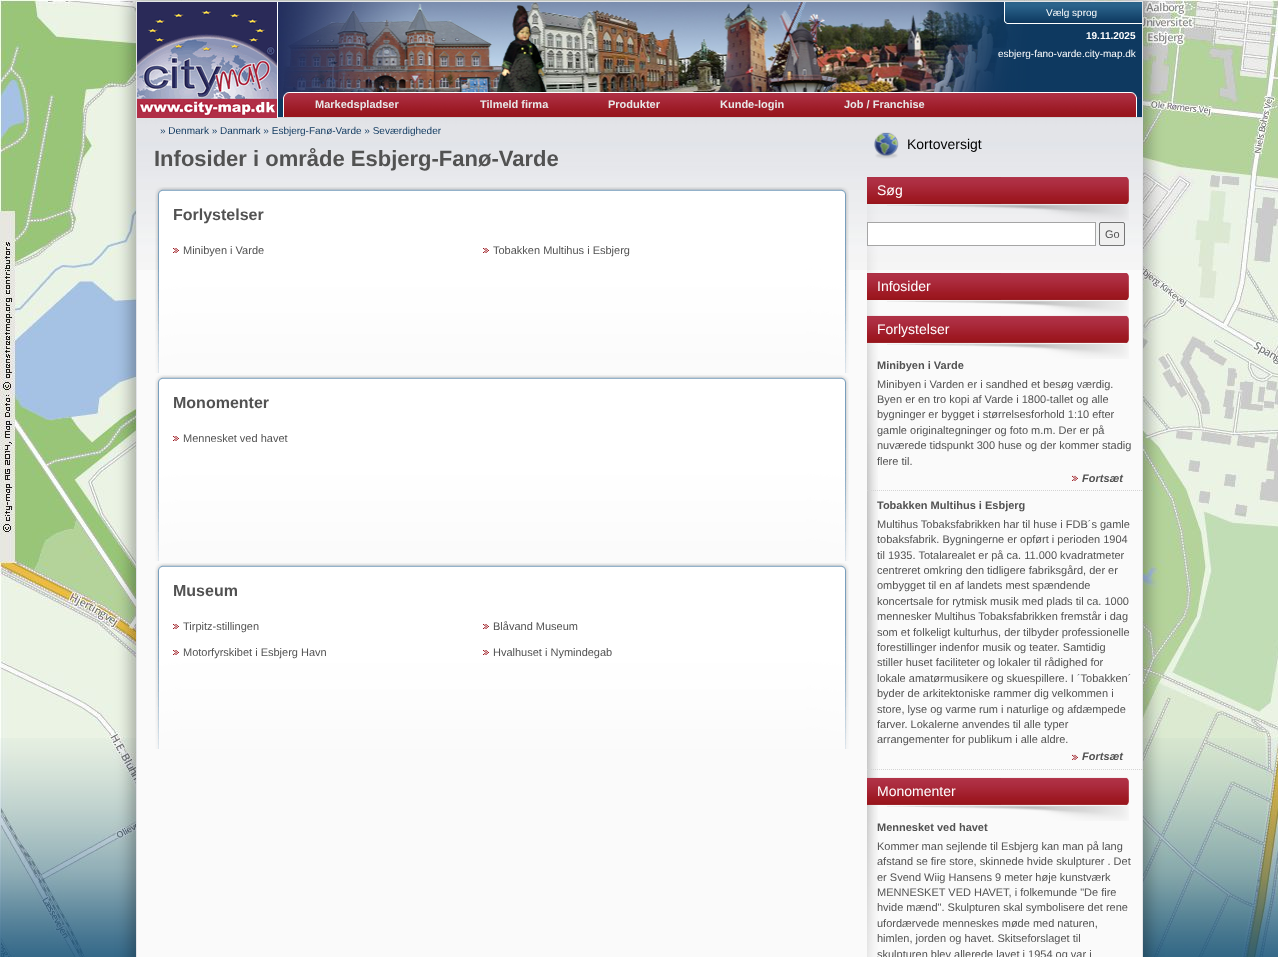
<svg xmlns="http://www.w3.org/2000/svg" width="1278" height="957">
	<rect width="100%" height="100%" fill="#FFFFFF" />
	<image x="0" y="0" width="1278" height="957" href="assets/img1.png" />
	<image x="0" y="738" width="1278" height="219" href="assets/img2.png" />
	<rect x="131" y="-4" width="1017" height="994" rx="10" fill="#000000" fill-opacity="0.3" filter="blur(7.5px)" />
	<rect x="137" y="270" width="1005" height="687" fill="#FAFAFA" />
	<rect x="136.5" y="1.5" width="1006" height="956" fill="none" stroke="#E3E4E8" />
	<rect x="277" y="2" width="1" height="116" fill="#FFFFFF" />
	<image x="137" y="2" width="140" height="97" href="assets/img3.png" />
	<image x="137" y="99" width="140" height="19" href="assets/img4.png" />
	<rect x="278" y="24" width="864" height="93" fill="#0E3960" />
	<image x="278" y="2" width="863" height="97" href="assets/img5.png" />
	<image x="920" y="2" width="221" height="95" href="assets/img6.png" />
	<image x="1004" y="2" width="138" height="22" href="assets/img7.png" />
	<text x="1046" y="16" font-family="Liberation Sans" font-size="10" fill="#FFFFFF">Vælg sprog</text>
	<text x="1086" y="39" font-family="Liberation Sans" font-size="10" font-weight="700" fill="#FFFFFF">19.11.2025</text>
	<text x="998" y="57" font-family="Liberation Sans" font-size="10" fill="#FFFFFF">esbjerg-fano-varde.city-map.dk</text>
	<image x="283" y="92" width="854" height="25" href="assets/img8.png" />
	<rect x="278" y="117" width="864" height="1" fill="#D3D3D3" />
	<g font-family="Liberation Sans" font-size="11" font-weight="700" fill="#E8E8E8">
		<text x="315" y="108">Markedspladser</text>
		<text x="480" y="108">Tilmeld firma</text>
		<text x="608" y="108">Produkter</text>
		<text x="720" y="108">Kunde-login</text>
		<text x="844" y="108">Job / Franchise</text>
	</g>
	<image x="137" y="118" width="1005" height="152" href="assets/img9.png" />
	<text x="160" y="134" font-family="Liberation Sans" font-size="10" fill="#0E385F">» Denmark » Danmark » Esbjerg-Fanø-Varde » Seværdigheder</text>
	<text x="154" y="166" font-family="Liberation Sans" font-size="22" font-weight="700" fill="#525252">Infosider i område Esbjerg-Fanø-Varde</text>
	<image x="155" y="187" width="694" height="186" href="assets/img10.png" />
	<text x="173" y="220" font-family="Liberation Sans" font-size="16" font-weight="700" fill="#525252">Forlystelser</text>
	<image x="173" y="248" width="6" height="5" href="assets/img11.png" />
	<text x="183" y="254" font-family="Liberation Sans" font-size="11" fill="#525252">Minibyen i Varde</text>
	<image x="483" y="248" width="6" height="5" href="assets/img11.png" />
	<text x="493" y="254" font-family="Liberation Sans" font-size="11" fill="#525252">Tobakken Multihus i Esbjerg</text>
	<image x="155" y="375" width="694" height="186" href="assets/img12.png" />
	<text x="173" y="408" font-family="Liberation Sans" font-size="16" font-weight="700" fill="#525252">Monomenter</text>
	<image x="173" y="436" width="6" height="5" href="assets/img11.png" />
	<text x="183" y="442" font-family="Liberation Sans" font-size="11" fill="#525252">Mennesket ved havet</text>
	<image x="155" y="563" width="694" height="186" href="assets/img12.png" />
	<text x="173" y="596" font-family="Liberation Sans" font-size="16" font-weight="700" fill="#525252">Museum</text>
	<image x="173" y="624" width="6" height="5" href="assets/img11.png" />
	<text x="183" y="630" font-family="Liberation Sans" font-size="11" fill="#525252">Tirpitz-stillingen</text>
	<image x="483" y="624" width="6" height="5" href="assets/img11.png" />
	<text x="493" y="630" font-family="Liberation Sans" font-size="11" fill="#525252">Blåvand Museum</text>
	<image x="173" y="650" width="6" height="5" href="assets/img13.png" />
	<text x="183" y="656" font-family="Liberation Sans" font-size="11" fill="#525252">Motorfyrskibet i Esbjerg Havn</text>
	<image x="483" y="650" width="6" height="5" href="assets/img14.png" />
	<text x="493" y="656" font-family="Liberation Sans" font-size="11" fill="#525252">Hvalhuset i Nymindegab</text>
	<image x="867" y="204" width="11" height="753" href="assets/img15.png" />
	<image x="874" y="132" width="25" height="27" href="assets/img16.png" />
	<text x="907" y="149" font-family="Liberation Sans" font-size="14" fill="#000000">Kortoversigt</text>
	<image x="867" y="177" width="262" height="44" href="assets/img17.png" />
	<text x="877" y="195" font-family="Liberation Sans" font-size="14" fill="#FFFFFF">Søg</text>
	<rect x="867.5" y="222.5" width="228" height="23" fill="#FFFFFF" stroke="#A5A5A5" />
	<rect x="1099.5" y="222.5" width="25" height="23" rx="1.5" fill="#EFEFEF" stroke="#767676" />
	<text x="1105" y="238" font-family="Liberation Sans" font-size="11" fill="#525252">Go</text>
	<image x="867" y="273" width="262" height="44" href="assets/img18.png" />
	<text x="877" y="291" font-family="Liberation Sans" font-size="14" fill="#FFFFFF">Infosider</text>
	<path d="M867 490.5H1142" fill="none" stroke="#D3D3D3" stroke-dasharray="1 1" />
	<image x="867" y="315" width="262" height="44" href="assets/img19.png" />
	<text x="877" y="334" font-family="Liberation Sans" font-size="14" fill="#FFFFFF">Forlystelser</text>
	<text x="877" y="369" font-family="Liberation Sans" font-size="11" font-weight="700" fill="#525252">Minibyen i Varde</text>
	<g font-family="Liberation Sans" font-size="11" fill="#525252">
		<text x="877" y="388">Minibyen i Varden er i sandhed et besøg værdig.</text>
		<text x="877" y="403">Byen er en tro kopi af Varde i 1800-tallet og alle</text>
		<text x="877" y="418">bygninger er bygget i størrelsesforhold 1:10 efter</text>
		<text x="877" y="434">gamle originaltegninger og foto m.m. Der er på</text>
		<text x="877" y="449">nuværede tidspunkt 300 huse og der kommer stadig</text>
		<text x="877" y="465">flere til.</text>
	</g>
	<image x="1072" y="475" width="6" height="6" href="assets/img20.png" />
	<text x="1082" y="482" font-family="Liberation Sans" font-size="11" font-weight="700" font-style="italic" fill="#525252">Fortsæt</text>
	<path d="M867 769.5H1142" fill="none" stroke="#D3D3D3" stroke-dasharray="1 1" />
	<text x="877" y="509" font-family="Liberation Sans" font-size="11" font-weight="700" fill="#525252">Tobakken Multihus i Esbjerg</text>
	<g font-family="Liberation Sans" font-size="11" fill="#525252">
		<text x="877" y="528">Multihus Tobaksfabrikken har til huse i FDB´s gamle</text>
		<text x="877" y="543">tobaksfabrik. Bygningerne er opført i perioden 1904</text>
		<text x="877" y="559">til 1935. Totalarealet er på ca. 11.000 kvadratmeter</text>
		<text x="877" y="574">centreret omkring den tidligere fabriksgård, der er</text>
		<text x="877" y="589">ombygget til en af landets mest spændende</text>
		<text x="877" y="605">koncertsale for rytmisk musik med plads til ca. 1000</text>
		<text x="877" y="620">mennesker Multihus Tobaksfabrikken fremstår i dag</text>
		<text x="877" y="636">som et folkeligt kulturhus, der tilbyder professionelle</text>
		<text x="877" y="651">forestillinger indenfor musik og teater. Samtidig</text>
		<text x="877" y="666">stiller huset faciliteter og lokaler til rådighed for</text>
		<text x="877" y="682">lokale amatørmusikere og skuespillere. I ´Tobakken´</text>
		<text x="877" y="697">byder de arkitektoniske rammer dig velkommen i</text>
		<text x="877" y="713">store, lyse og varme rum i naturlige og afdæmpede</text>
		<text x="877" y="728">farver. Lokalerne anvendes til alle typer</text>
		<text x="877" y="743">arrangementer for publikum i alle aldre.</text>
	</g>
	<image x="1072" y="754" width="6" height="6" href="assets/img20.png" />
	<text x="1082" y="760" font-family="Liberation Sans" font-size="11" font-weight="700" font-style="italic" fill="#525252">Fortsæt</text>
	<image x="867" y="777" width="262" height="44" href="assets/img21.png" />
	<text x="877" y="796" font-family="Liberation Sans" font-size="14" fill="#FFFFFF">Monomenter</text>
	<text x="877" y="831" font-family="Liberation Sans" font-size="11" font-weight="700" fill="#525252">Mennesket ved havet</text>
	<g font-family="Liberation Sans" font-size="11" fill="#525252">
		<text x="877" y="850">Kommer man sejlende til Esbjerg kan man på lang</text>
		<text x="877" y="865">afstand se fire store, skinnede hvide skulpturer . Det</text>
		<text x="877" y="881">er Svend Wiig Hansens 9 meter høje kunstværk</text>
		<text x="877" y="896">MENNESKET VED HAVET, i folkemunde "De fire</text>
		<text x="877" y="911">hvide mænd". Skulpturen skal symbolisere det rene</text>
		<text x="877" y="927">ufordærvede menneskes møde med naturen,</text>
		<text x="877" y="942">himlen, jorden og havet. Skitseforslaget til</text>
		<text x="877" y="958">skulpturen blev allerede lavet i 1954 og var i</text>
	</g>
</svg>
